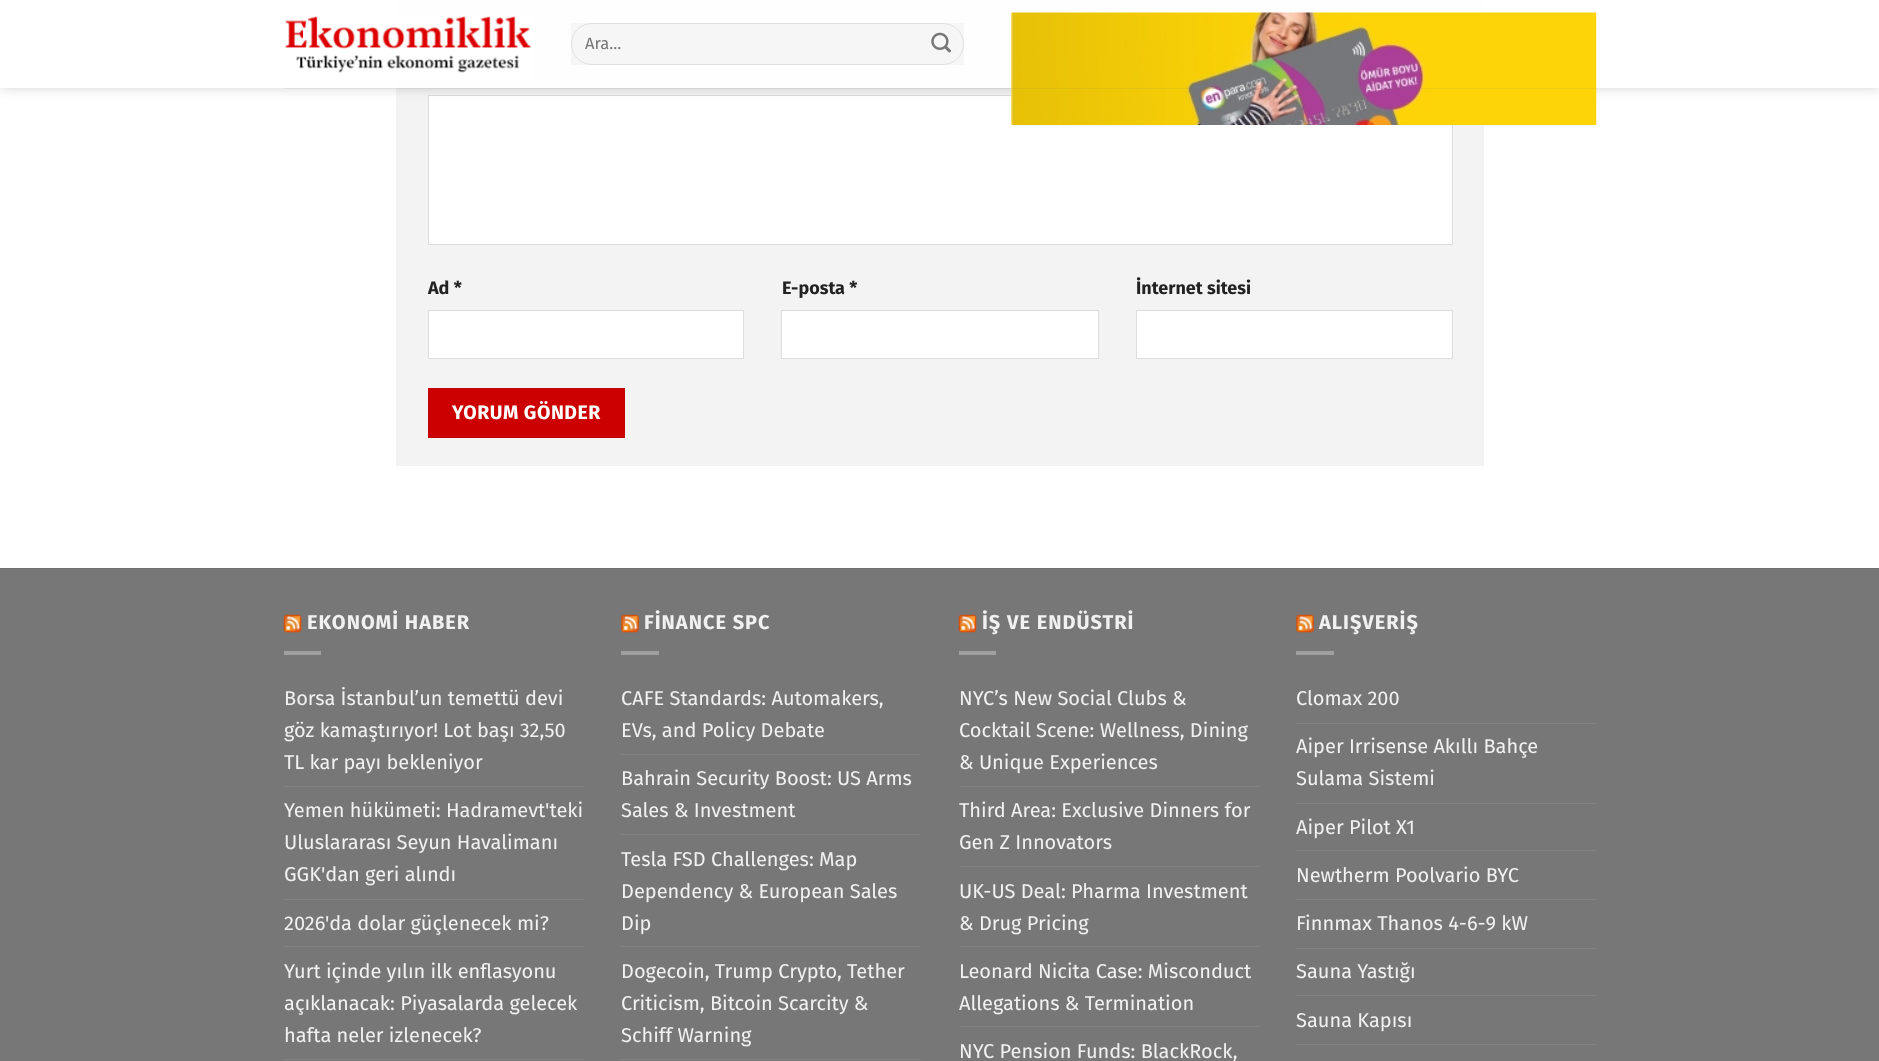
<svg xmlns="http://www.w3.org/2000/svg" width="1879" height="1061">
	<defs>
		<clipPath id="clip1"><path d="M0 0H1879V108H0ZM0 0H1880V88H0Z" clip-rule="evenodd" /></clipPath>
	</defs>
	<rect width="100%" height="100%" fill="#FFFFFF" />
	<rect x="396" y="0" width="1088" height="466" fill="#F3F3F3" />
	<rect x="428.5" y="95.5" width="1024" height="149" fill="#FFFFFF" stroke="#DDDDDD" />
	<g clip-path="url(#clip1)">
		<rect x="1" y="1" width="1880" height="88" fill="#000000" fill-opacity="0.15" filter="blur(6px)" />
	</g>
	<rect x="0" y="0" width="1879" height="88" fill="#FFFFFF" fill-opacity="0.9" />
	<image x="285" y="16" width="249" height="64" href="assets/img1.png" />
	<rect x="571" y="23" width="393" height="42" fill="#000000" fill-opacity="0.03" />
	<rect x="571.5" y="23.5" width="392" height="41" rx="20.5" fill="none" stroke="#000000" stroke-opacity="0.09" />
	<text x="585" y="49" font-family="Fira Sans" font-size="16.5" fill="#757575">Ara...</text>
	<image x="931" y="32" width="20" height="21" href="assets/img2.png" />
	<image x="1011" y="12" width="586" height="113" href="assets/img3.png" />
	<rect x="284" y="88" width="1312" height="1" fill="#777777" fill-opacity="0.1" />
	<text x="428" y="294" font-family="Fira Sans" font-size="18" font-weight="700" fill="#222222">Ad *</text>
	<rect x="428.5" y="310.5" width="315" height="48" fill="#FFFFFF" stroke="#DDDDDD" />
	<text x="782" y="294" font-family="Fira Sans" font-size="18" font-weight="700" fill="#222222">E-posta *</text>
	<rect x="781.5" y="310.5" width="317" height="48" fill="#FFFFFF" stroke="#DDDDDD" />
	<text x="1136" y="294" font-family="Fira Sans" font-size="18" font-weight="700" fill="#222222">İnternet sitesi</text>
	<rect x="1136.5" y="310.5" width="316" height="48" fill="#FFFFFF" stroke="#DDDDDD" />
	<rect x="428.5" y="388.5" width="196" height="49" fill="#CC0000" stroke="#C20000" />
	<text x="452" y="419" font-family="Fira Sans" font-size="19.5" font-weight="700" letter-spacing="0.5" fill="#FFFFFF">YORUM GÖNDER</text>
	<rect x="0" y="569" width="1879" height="492" fill="#777777" />
	<rect x="0" y="568" width="1879" height="1" fill="#717171" />
	<image x="283" y="614" width="19" height="19" href="assets/img4.png" />
	<text x="307" y="629" font-family="Fira Sans" font-size="20" font-weight="700" letter-spacing="1" fill="#F1F1F1">EKONOMİ HABER</text>
	<rect x="284" y="651" width="37" height="4" fill="#A0A0A0" />
	<g font-family="Fira Sans" font-size="20" fill="#F1F1F1">
		<text x="284" y="705">Borsa İstanbul’un temettü devi</text>
		<text x="284" y="737">göz kamaştırıyor! Lot başı 32,50</text>
		<text x="284" y="769">TL kar payı bekleniyor</text>
	</g>
	<rect x="284" y="786" width="300" height="1" fill="#828282" />
	<g font-family="Fira Sans" font-size="20" fill="#F1F1F1">
		<text x="284" y="817">Yemen hükümeti: Hadramevt'teki</text>
		<text x="284" y="849">Uluslararası Seyun Havalimanı</text>
		<text x="284" y="881">GGK'dan geri alındı</text>
	</g>
	<rect x="284" y="899" width="300" height="1" fill="#828282" />
	<text x="284" y="930" font-family="Fira Sans" font-size="20" fill="#F1F1F1">2026'da dolar güçlenecek mi?</text>
	<rect x="284" y="946" width="300" height="1" fill="#828282" />
	<g font-family="Fira Sans" font-size="20" fill="#F1F1F1">
		<text x="284" y="978">Yurt içinde yılın ilk enflasyonu</text>
		<text x="284" y="1010">açıklanacak: Piyasalarda gelecek</text>
		<text x="284" y="1042">hafta neler izlenecek?</text>
	</g>
	<rect x="284" y="1059" width="300" height="1" fill="#828282" />
	<image x="621" y="614" width="18" height="19" href="assets/img5.png" />
	<text x="644" y="629" font-family="Fira Sans" font-size="20" font-weight="700" letter-spacing="1" fill="#F1F1F1">FİNANCE SPC</text>
	<rect x="621" y="651" width="38" height="4" fill="#A0A0A0" />
	<g font-family="Fira Sans" font-size="20" fill="#F1F1F1">
		<text x="621" y="705">CAFE Standards: Automakers,</text>
		<text x="621" y="737">EVs, and Policy Debate</text>
	</g>
	<rect x="621" y="754" width="300" height="1" fill="#828282" />
	<g font-family="Fira Sans" font-size="20" fill="#F1F1F1">
		<text x="621" y="785">Bahrain Security Boost: US Arms</text>
		<text x="621" y="817">Sales &amp; Investment</text>
	</g>
	<rect x="621" y="834" width="300" height="1" fill="#828282" />
	<g font-family="Fira Sans" font-size="20" fill="#F1F1F1">
		<text x="621" y="866">Tesla FSD Challenges: Map</text>
		<text x="621" y="898">Dependency &amp; European Sales</text>
		<text x="621" y="930">Dip</text>
	</g>
	<rect x="621" y="946" width="300" height="1" fill="#828282" />
	<g font-family="Fira Sans" font-size="20" fill="#F1F1F1">
		<text x="621" y="978">Dogecoin, Trump Crypto, Tether</text>
		<text x="621" y="1010">Criticism, Bitcoin Scarcity &amp;</text>
		<text x="621" y="1042">Schiff Warning</text>
	</g>
	<rect x="621" y="1059" width="300" height="1" fill="#828282" />
	<image x="958" y="614" width="19" height="19" href="assets/img4.png" />
	<text x="982" y="629" font-family="Fira Sans" font-size="20" font-weight="700" letter-spacing="1" fill="#F1F1F1">İŞ VE ENDÜSTRİ</text>
	<rect x="959" y="651" width="37" height="4" fill="#A0A0A0" />
	<g font-family="Fira Sans" font-size="20" fill="#F1F1F1">
		<text x="959" y="705">NYC’s New Social Clubs &amp;</text>
		<text x="959" y="737">Cocktail Scene: Wellness, Dining</text>
		<text x="959" y="769">&amp; Unique Experiences</text>
	</g>
	<rect x="959" y="786" width="300" height="1" fill="#828282" />
	<g font-family="Fira Sans" font-size="20" fill="#F1F1F1">
		<text x="959" y="817">Third Area: Exclusive Dinners for</text>
		<text x="959" y="849">Gen Z Innovators</text>
	</g>
	<rect x="959" y="866" width="300" height="1" fill="#828282" />
	<g font-family="Fira Sans" font-size="20" fill="#F1F1F1">
		<text x="959" y="898">UK-US Deal: Pharma Investment</text>
		<text x="959" y="930">&amp; Drug Pricing</text>
	</g>
	<rect x="959" y="946" width="300" height="1" fill="#828282" />
	<g font-family="Fira Sans" font-size="20" fill="#F1F1F1">
		<text x="959" y="978">Leonard Nicita Case: Misconduct</text>
		<text x="959" y="1010">Allegations &amp; Termination</text>
	</g>
	<rect x="959" y="1026" width="300" height="1" fill="#828282" />
	<text x="959" y="1058" font-family="Fira Sans" font-size="20" fill="#F1F1F1">NYC Pension Funds: BlackRock,</text>
	<image x="1296" y="614" width="18" height="19" href="assets/img5.png" />
	<text x="1319" y="629" font-family="Fira Sans" font-size="20" font-weight="700" letter-spacing="1" fill="#F1F1F1">ALIŞVERİŞ</text>
	<rect x="1296" y="651" width="38" height="4" fill="#A0A0A0" />
	<text x="1296" y="705" font-family="Fira Sans" font-size="20" fill="#F1F1F1">Clomax 200</text>
	<rect x="1296" y="723" width="300" height="1" fill="#828282" />
	<g font-family="Fira Sans" font-size="20" fill="#F1F1F1">
		<text x="1296" y="753">Aiper Irrisense Akıllı Bahçe</text>
		<text x="1296" y="785">Sulama Sistemi</text>
	</g>
	<rect x="1296" y="803" width="300" height="1" fill="#828282" />
	<text x="1296" y="834" font-family="Fira Sans" font-size="20" fill="#F1F1F1">Aiper Pilot X1</text>
	<rect x="1296" y="850" width="300" height="1" fill="#828282" />
	<text x="1296" y="882" font-family="Fira Sans" font-size="20" fill="#F1F1F1">Newtherm Poolvario BYC</text>
	<rect x="1296" y="899" width="300" height="1" fill="#828282" />
	<text x="1296" y="930" font-family="Fira Sans" font-size="20" fill="#F1F1F1">Finnmax Thanos 4-6-9 kW</text>
	<rect x="1296" y="948" width="300" height="1" fill="#828282" />
	<text x="1296" y="978" font-family="Fira Sans" font-size="20" fill="#F1F1F1">Sauna Yastığı</text>
	<rect x="1296" y="995" width="300" height="1" fill="#828282" />
	<text x="1296" y="1027" font-family="Fira Sans" font-size="20" fill="#F1F1F1">Sauna Kapısı</text>
	<rect x="1296" y="1044" width="300" height="1" fill="#828282" />
</svg>
